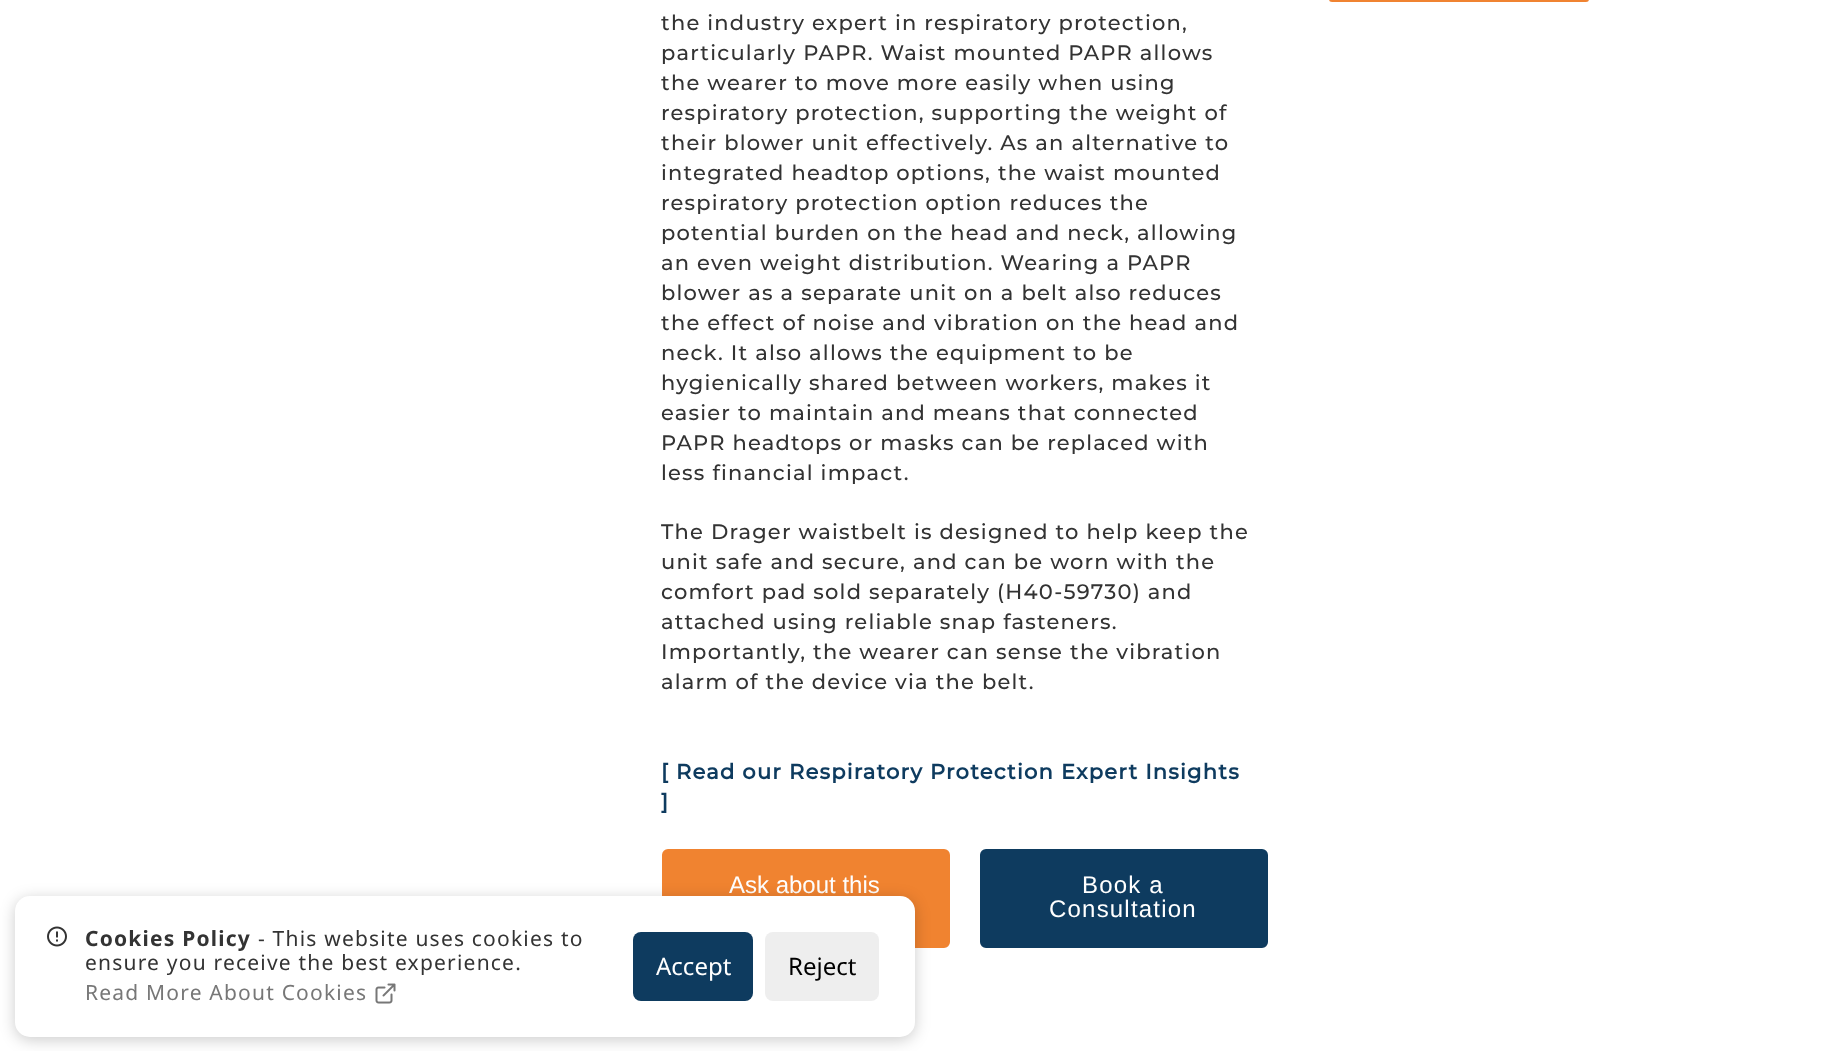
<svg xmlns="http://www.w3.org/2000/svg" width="1823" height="1051">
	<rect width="100%" height="100%" fill="#FFFFFF" />
	<rect x="1329" y="-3" width="260" height="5" rx="3" fill="#F08331" />
	<g font-family="Montserrat" font-size="21" font-weight="500" letter-spacing="1.2" fill="#333333">
		<text x="661" y="30">the industry expert in respiratory protection,</text>
		<text x="661" y="60">particularly PAPR. Waist mounted PAPR allows</text>
		<text x="661" y="90">the wearer to move more easily when using</text>
		<text x="661" y="120">respiratory protection, supporting the weight of</text>
		<text x="661" y="150">their blower unit effectively. As an alternative to</text>
		<text x="661" y="180">integrated headtop options, the waist mounted</text>
		<text x="661" y="210">respiratory protection option reduces the</text>
		<text x="661" y="240">potential burden on the head and neck, allowing</text>
		<text x="661" y="270">an even weight distribution. Wearing a PAPR</text>
		<text x="661" y="300">blower as a separate unit on a belt also reduces</text>
		<text x="661" y="330">the effect of noise and vibration on the head and</text>
		<text x="661" y="360">neck. It also allows the equipment to be</text>
		<text x="661" y="390">hygienically shared between workers, makes it</text>
		<text x="661" y="420">easier to maintain and means that connected</text>
		<text x="661" y="450">PAPR headtops or masks can be replaced with</text>
		<text x="661" y="480">less financial impact.</text>
		<text x="661" y="539">The Drager waistbelt is designed to help keep the</text>
		<text x="661" y="569">unit safe and secure, and can be worn with the</text>
		<text x="661" y="599">comfort pad sold separately (H40-59730) and</text>
		<text x="661" y="629">attached using reliable snap fasteners.</text>
		<text x="661" y="659">Importantly, the wearer can sense the vibration</text>
		<text x="661" y="689">alarm of the device via the belt.</text>
	</g>
	<g font-family="Montserrat" font-size="21" font-weight="700" letter-spacing="1.2" fill="#0E3B5F">
		<text x="661" y="779">[ Read our Respiratory Protection Expert Insights</text>
		<text x="661" y="809">]</text>
	</g>
	<rect x="663" y="850" width="286" height="97" rx="5" fill="#F08330" stroke="#F08330" stroke-width="2" />
	<text x="729" y="893" font-family="Liberation Sans" font-size="24" fill="#FFFFFF">Ask about this</text>
	<rect x="981" y="850" width="286" height="97" rx="5" fill="#0E3B5F" stroke="#0E3B5F" stroke-width="2" />
	<g font-family="Liberation Sans" font-size="24" letter-spacing="1.2" fill="#FFFFFF">
		<text x="1082" y="893">Book a</text>
		<text x="1049" y="917">Consultation</text>
	</g>
	<rect x="15" y="899" width="900" height="141" rx="15" fill="#000000" fill-opacity="0.2" filter="blur(7.5px)" />
	<rect x="15" y="896" width="900" height="141" rx="15" fill="#FFFFFF" />
	<image x="47" y="926" width="20" height="21" href="assets/img1.png" />
	<text x="85" y="946" font-family="Noto Sans" font-size="21" font-weight="700" letter-spacing="1.2" fill="#333333">Cookies Policy</text>
	<g font-family="Noto Sans" font-size="21" letter-spacing="1.2" fill="#333333">
		<text x="258" y="946">- This website uses cookies to</text>
		<text x="85" y="970">ensure you receive the best experience.</text>
	</g>
	<text x="85" y="1000" font-family="Noto Sans" font-size="21" letter-spacing="1.2" fill="#777777">Read More About Cookies</text>
	<image x="375" y="983" width="21" height="21" href="assets/img2.png" />
	<rect x="633" y="932" width="120" height="69" rx="8" fill="#0E3B5F" />
	<text x="656" y="975" font-family="Noto Sans" font-size="24" fill="#FFFFFF">Accept</text>
	<rect x="765" y="932" width="114" height="69" rx="8" fill="#EEEEEE" />
	<text x="788" y="975" font-family="Noto Sans" font-size="24" fill="#000000">Reject</text>
</svg>
